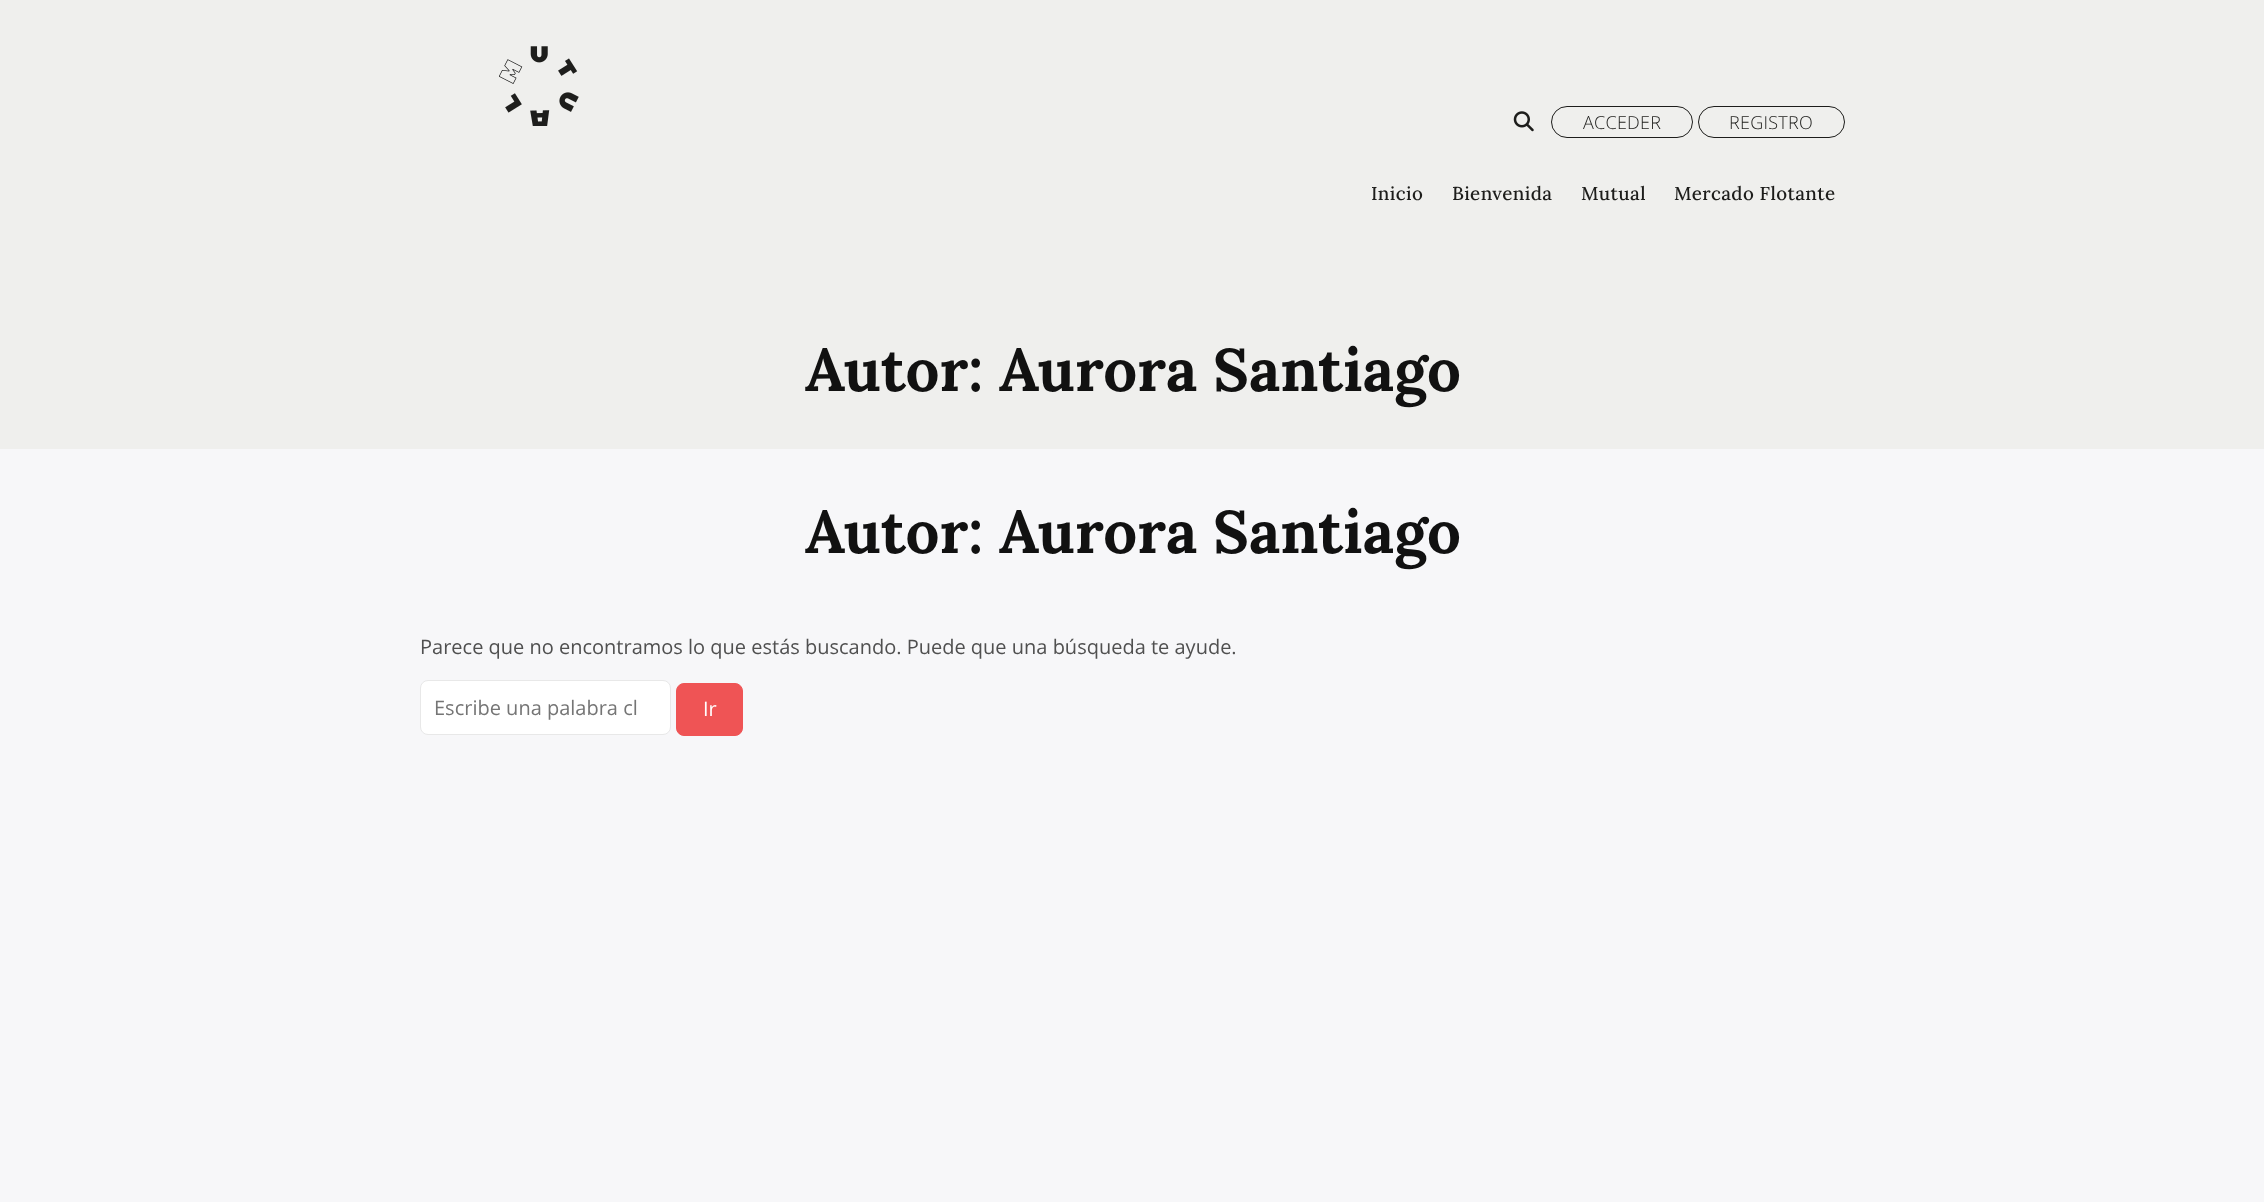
<svg xmlns="http://www.w3.org/2000/svg" width="2264" height="1202">
	<rect width="100%" height="100%" fill="#F7F7F9" />
	<rect x="0" y="0" width="2264" height="449" fill="#EFEFED" />
	<image x="499" y="46" width="80" height="80" href="assets/img1.png" />
	<image x="1513" y="111" width="21" height="21" href="assets/img2.png" />
	<rect x="1551.5" y="106.5" width="141" height="31" rx="15.5" fill="none" stroke="#1D1D1B" />
	<text x="1583" y="129" font-family="Open Sans" font-size="18" font-weight="300" letter-spacing="0.25" fill="#1D1D1B">ACCEDER</text>
	<rect x="1698.5" y="106.5" width="146" height="31" rx="15.5" fill="none" stroke="#1D1D1B" />
	<text x="1729" y="129" font-family="Open Sans" font-size="18" font-weight="300" letter-spacing="0.25" fill="#1D1D1B">REGISTRO</text>
	<g font-family="Lora" font-size="18.75" font-weight="500" letter-spacing="0.4" fill="#1D1D1B">
		<text x="1371" y="200">Inicio</text>
		<text x="1452" y="200">Bienvenida</text>
		<text x="1581" y="200">Mutual</text>
		<text x="1674" y="200">Mercado Flotante</text>
	</g>
	<g font-family="Lora" font-size="60" font-weight="700" fill="#111111">
		<text x="805" y="391">Autor: Aurora Santiago</text>
		<text x="805" y="553">Autor: Aurora Santiago</text>
	</g>
	<text x="420" y="654" font-family="Open Sans" font-size="20" fill="#505050">Parece que no encontramos lo que estás buscando. Puede que una búsqueda te ayude.</text>
	<rect x="420.5" y="680.5" width="250" height="54" rx="7.5" fill="#FFFFFF" stroke="#E8E8E8" />
	<text x="434" y="715" font-family="Open Sans" font-size="20" fill="#757575">Escribe una palabra cl</text>
	<rect x="676.5" y="683.5" width="66" height="52" rx="7.5" fill="#EF5455" stroke="#EF5455" />
	<text x="703" y="716" font-family="Open Sans" font-size="20" fill="#FFFFFF">Ir</text>
</svg>
